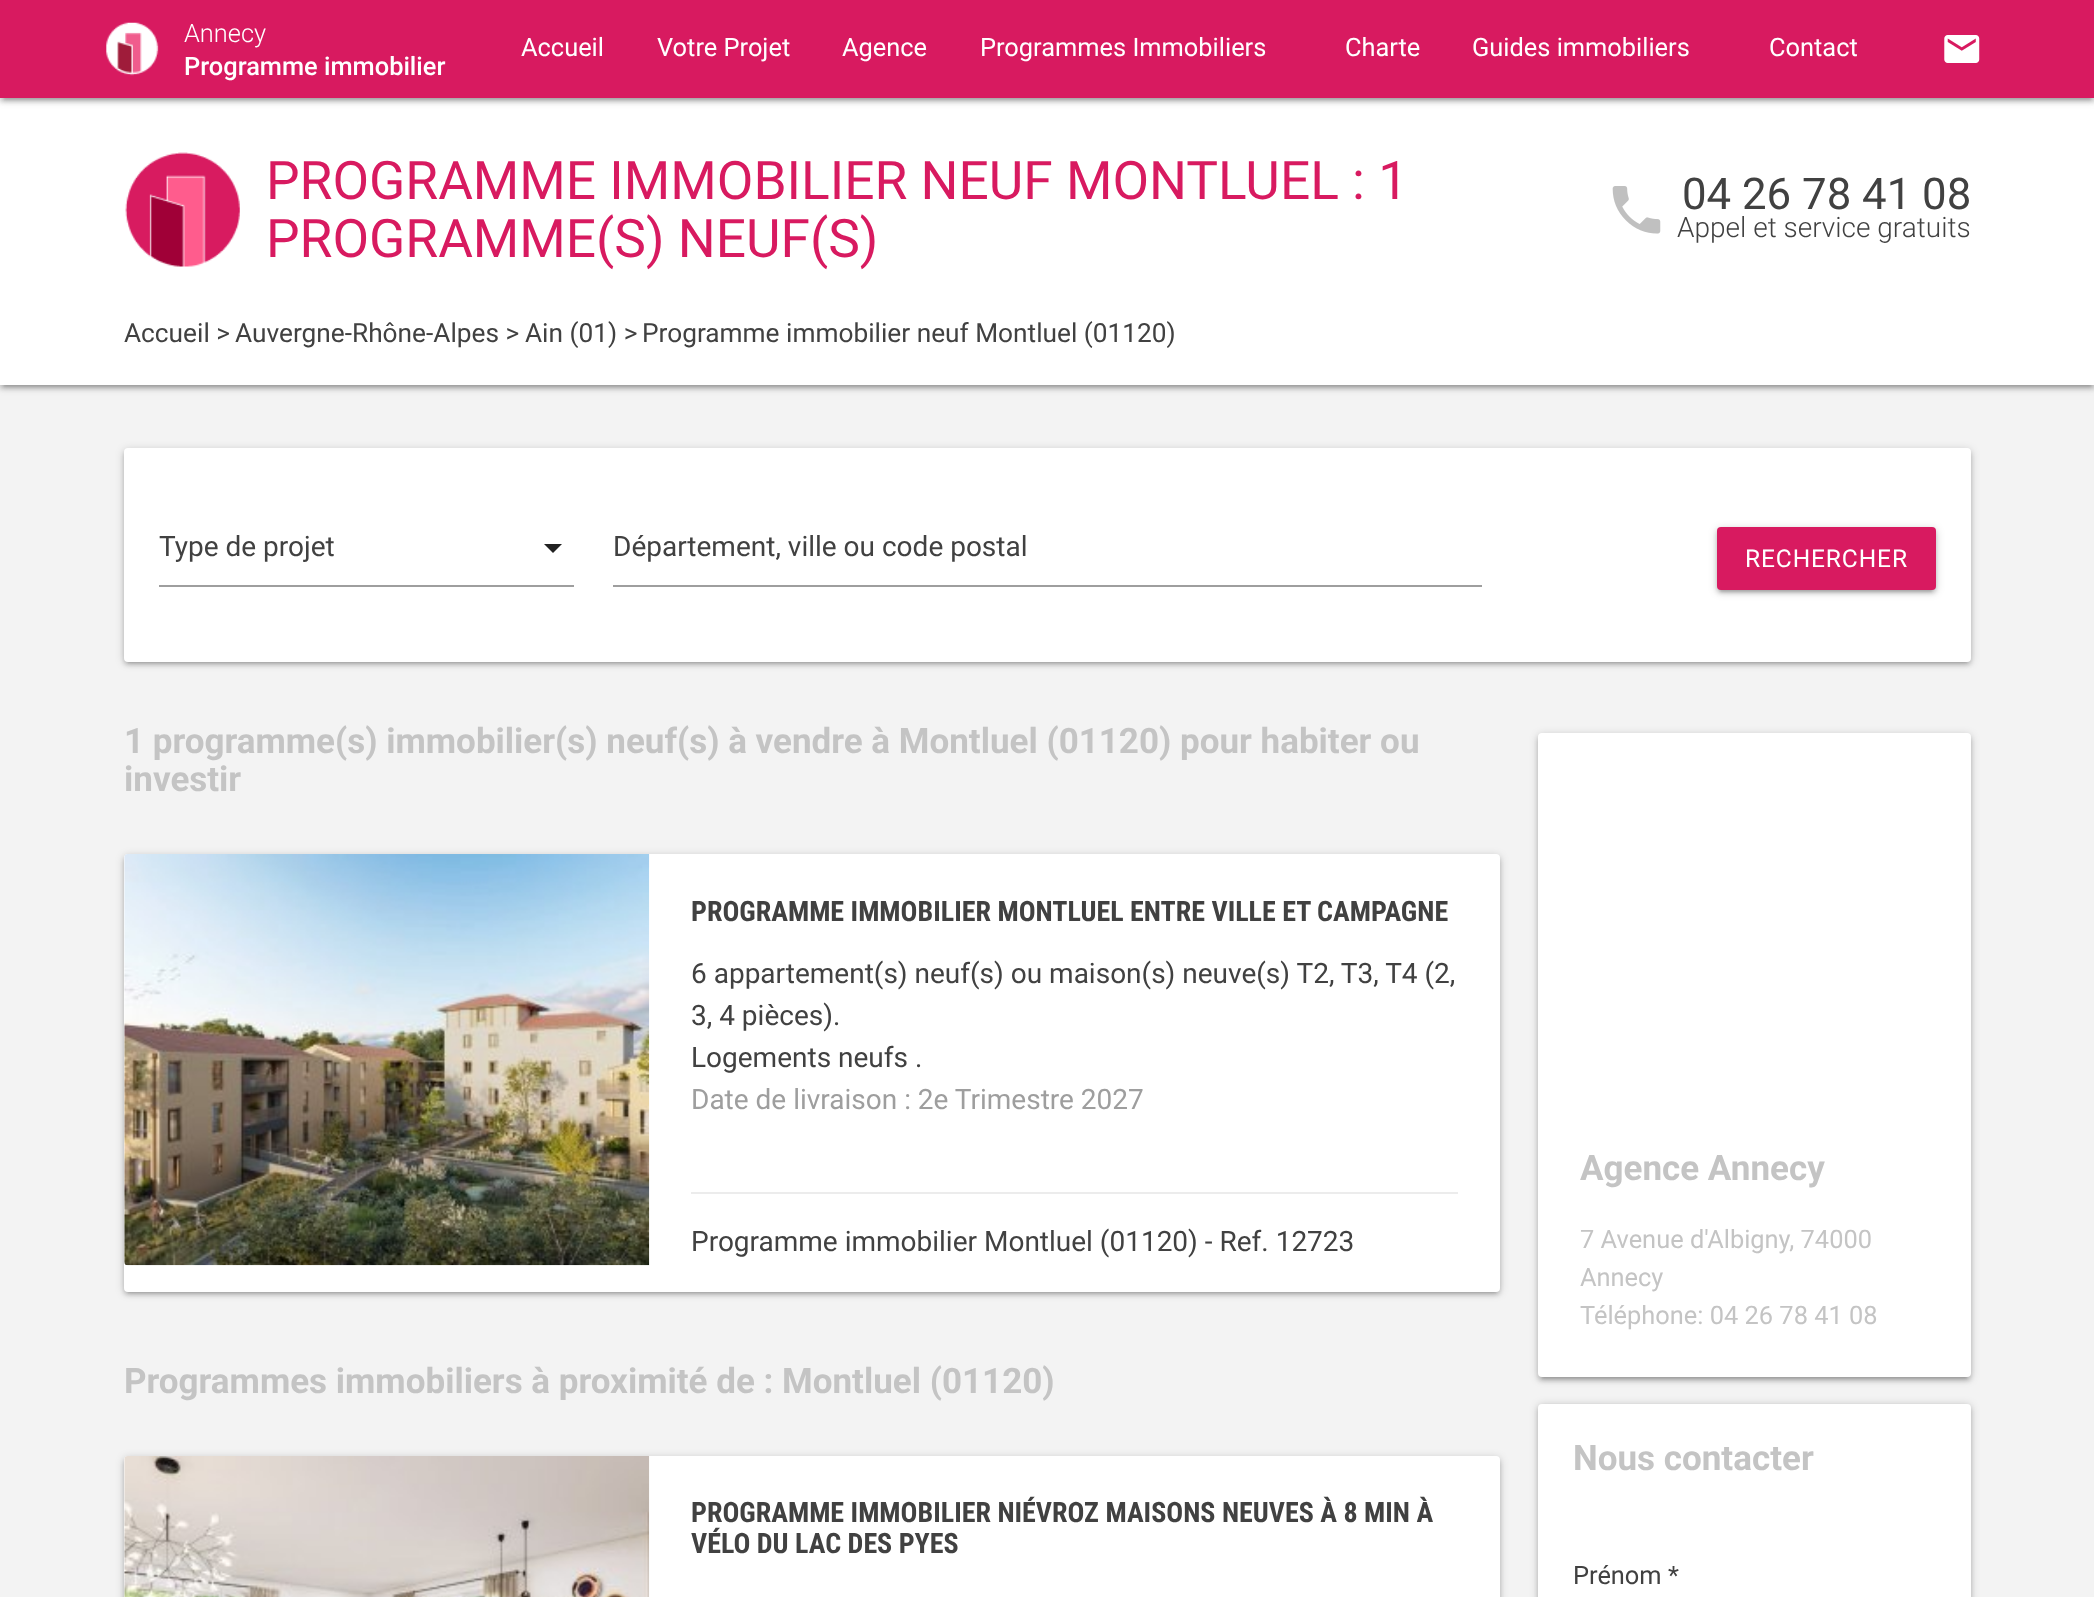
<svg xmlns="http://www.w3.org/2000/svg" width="2094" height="1597">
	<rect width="100%" height="100%" fill="#F3F3F3" />
	<rect x="0" y="100" width="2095" height="287" fill="#000000" fill-opacity="0.2" filter="blur(4.5px)" />
	<rect x="4" y="107" width="2087" height="280" fill="#000000" fill-opacity="0.12" filter="blur(1px)" />
	<rect x="0" y="102" width="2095" height="287" fill="#000000" fill-opacity="0.14" filter="blur(2px)" />
	<rect x="0" y="98" width="2094" height="287" fill="#FFFFFF" />
	<rect x="0" y="2" width="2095" height="98" fill="#000000" fill-opacity="0.2" filter="blur(4.5px)" />
	<rect x="4" y="9" width="2087" height="91" fill="#000000" fill-opacity="0.12" filter="blur(1px)" />
	<rect x="0" y="4" width="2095" height="98" fill="#000000" fill-opacity="0.14" filter="blur(2px)" />
	<rect x="0" y="0" width="2094" height="98" fill="#D81A60" />
	<image x="106" y="22" width="53" height="54" href="assets/img1.png" />
	<text x="184" y="42" font-family="Roboto" font-size="25.4" font-weight="300" fill="#FFFFFF">Annecy</text>
	<text x="184" y="75" font-family="Roboto" font-size="25.4" font-weight="500" fill="#FFFFFF">Programme immobilier</text>
	<g font-family="Roboto" font-size="25.4" fill="#FFFFFF">
		<text x="521" y="56">Accueil</text>
		<text x="657" y="56">Votre Projet</text>
		<text x="842" y="56">Agence</text>
		<text x="980" y="56">Programmes Immobiliers</text>
		<text x="1345" y="56">Charte</text>
		<text x="1472" y="56">Guides immobiliers</text>
		<text x="1769" y="56">Contact</text>
	</g>
	<image x="1944" y="35" width="36" height="28" href="assets/img2.png" />
	<image x="125" y="152" width="115" height="115" href="assets/img3.png" />
	<g font-family="Roboto" font-size="53.25" fill="#D81A60">
		<text x="266" y="199">PROGRAMME IMMOBILIER NEUF MONTLUEL : 1</text>
		<text x="266" y="257">PROGRAMME(S) NEUF(S)</text>
	</g>
	<image x="1612" y="186" width="49" height="48" href="assets/img4.png" />
	<text x="1682" y="209" font-family="Roboto" font-size="43.75" fill="#414141">04 26 78 41 08</text>
	<text x="1677" y="237" font-family="Roboto" font-size="28" font-weight="300" fill="#414141">Appel et service gratuits</text>
	<g font-family="Roboto" font-size="26.25" fill="#414141">
		<text x="124" y="342">Accueil &gt;</text>
		<text x="235" y="342">Auvergne-Rhône-Alpes &gt;</text>
		<text x="525" y="342">Ain (01) &gt;</text>
		<text x="642" y="342">Programme immobilier neuf Montluel (01120)</text>
	</g>
	<rect x="124" y="450" width="1847" height="213" rx="4" fill="#000000" fill-opacity="0.2" filter="blur(4.5px)" />
	<rect x="128" y="457" width="1839" height="206" fill="#000000" fill-opacity="0.12" filter="blur(1px)" />
	<rect x="124" y="452" width="1847" height="213" rx="4" fill="#000000" fill-opacity="0.14" filter="blur(2px)" />
	<rect x="124" y="448" width="1847" height="214" rx="4" fill="#FFFFFF" />
	<rect x="159" y="585" width="415" height="2" fill="#9E9E9E" />
	<text x="159" y="556" font-family="Roboto" font-size="28" fill="#414141">Type de projet</text>
	<path d="M544 544L553 553L562 544Z" fill="#212121" />
	<rect x="613" y="585" width="869" height="2" fill="#9E9E9E" />
	<text x="613" y="556" font-family="Roboto" font-size="28" fill="#414141">Département, ville ou code postal</text>
	<rect x="1717" y="529" width="219" height="63" rx="4" fill="#000000" fill-opacity="0.2" filter="blur(4.5px)" />
	<rect x="1720" y="536" width="212" height="56" fill="#000000" fill-opacity="0.12" filter="blur(1px)" />
	<rect x="1717" y="530" width="219" height="63" rx="4" fill="#000000" fill-opacity="0.14" filter="blur(2px)" />
	<rect x="1717" y="527" width="219" height="63" rx="4" fill="#D81A60" />
	<text x="1745" y="567" font-family="Roboto" font-size="24.5" letter-spacing="0.9" fill="#FFFFFF">RECHERCHER</text>
	<g font-family="Roboto" font-size="35" font-weight="700" fill="#C4C4C4">
		<text x="124" y="753">1 programme(s) immobilier(s) neuf(s) à vendre à Montluel (01120) pour habiter ou</text>
		<text x="124" y="791">investir</text>
	</g>
	<rect x="124" y="856" width="1376" height="437" rx="4" fill="#000000" fill-opacity="0.2" filter="blur(4.5px)" />
	<rect x="128" y="863" width="1368" height="430" fill="#000000" fill-opacity="0.12" filter="blur(1px)" />
	<rect x="124" y="858" width="1376" height="437" rx="4" fill="#000000" fill-opacity="0.14" filter="blur(2px)" />
	<rect x="124" y="854" width="1376" height="438" rx="4" fill="#FFFFFF" />
	<image x="124" y="854" width="526" height="412" href="assets/img5.png" />
	<text x="691" y="921" font-family="Roboto Condensed" font-size="28" font-weight="700" fill="#414141">PROGRAMME IMMOBILIER MONTLUEL ENTRE VILLE ET CAMPAGNE</text>
	<g font-family="Roboto" font-size="28" fill="#414141">
		<text x="691" y="983">6 appartement(s) neuf(s) ou maison(s) neuve(s) T2, T3, T4 (2,</text>
		<text x="691" y="1025">3, 4 pièces).</text>
		<text x="691" y="1067">Logements neufs .</text>
	</g>
	<text x="691" y="1109" font-family="Roboto" font-size="28" fill="#9E9E9E">Date de livraison : 2e Trimestre 2027</text>
	<rect x="691" y="1192" width="767" height="2" fill="#ECECEC" />
	<text x="691" y="1251" font-family="Roboto" font-size="28" fill="#414141">Programme immobilier Montluel (01120) - Ref. 12723</text>
	<text x="124" y="1393" font-family="Roboto" font-size="35" font-weight="700" fill="#C4C4C4">Programmes immobiliers à proximité de : Montluel (01120)</text>
	<rect x="124" y="1458" width="1376" height="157" rx="4" fill="#000000" fill-opacity="0.2" filter="blur(4.5px)" />
	<rect x="124" y="1460" width="1376" height="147" rx="4" fill="#000000" fill-opacity="0.14" filter="blur(2px)" />
	<rect x="124" y="1456" width="1376" height="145" rx="4" fill="#FFFFFF" />
	<image x="124" y="1456" width="526" height="141" href="assets/img6.png" />
	<g font-family="Roboto Condensed" font-size="28" font-weight="700" fill="#414141">
		<text x="691" y="1522">PROGRAMME IMMOBILIER NIÉVROZ MAISONS NEUVES À 8 MIN À</text>
		<text x="691" y="1553">VÉLO DU LAC DES PYES</text>
	</g>
	<rect x="1538" y="735" width="433" height="644" rx="4" fill="#000000" fill-opacity="0.2" filter="blur(4.5px)" />
	<rect x="1542" y="742" width="425" height="637" fill="#000000" fill-opacity="0.12" filter="blur(1px)" />
	<rect x="1538" y="737" width="433" height="644" rx="4" fill="#000000" fill-opacity="0.14" filter="blur(2px)" />
	<rect x="1538" y="733" width="433" height="644" rx="4" fill="#FFFFFF" />
	<text x="1580" y="1180" font-family="Roboto" font-size="35" font-weight="700" fill="#C4C4C4">Agence Annecy</text>
	<g font-family="Roboto" font-size="25.4" fill="#C4C4C4">
		<text x="1580" y="1248">7 Avenue d'Albigny, 74000</text>
		<text x="1580" y="1286">Annecy</text>
		<text x="1580" y="1324">Téléphone: 04 26 78 41 08</text>
	</g>
	<rect x="1538" y="1405" width="433" height="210" rx="4" fill="#000000" fill-opacity="0.2" filter="blur(4.5px)" />
	<rect x="1538" y="1407" width="433" height="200" rx="4" fill="#000000" fill-opacity="0.14" filter="blur(2px)" />
	<rect x="1538" y="1404" width="433" height="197" rx="4" fill="#FFFFFF" />
	<text x="1573" y="1470" font-family="Roboto" font-size="35" font-weight="700" fill="#C4C4C4">Nous contacter</text>
	<text x="1573" y="1584" font-family="Roboto" font-size="25.4" fill="#414141">Prénom *</text>
</svg>
